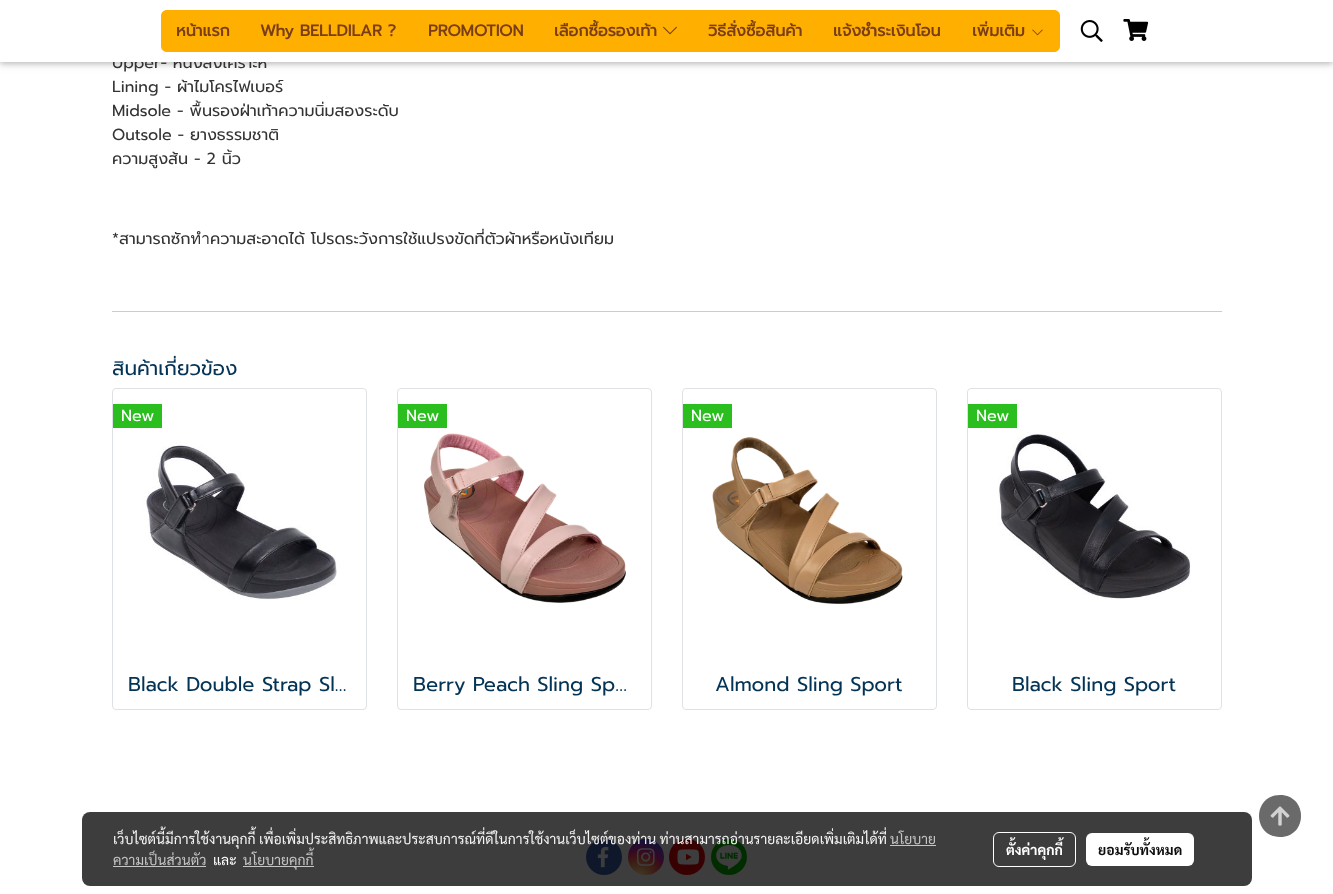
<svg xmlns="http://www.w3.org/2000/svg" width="1333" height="894">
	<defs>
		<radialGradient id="g1" gradientUnits="userSpaceOnUse" cx="639" cy="878" r="46"><stop offset="0" stop-color="#FDF497" /><stop offset="0.05" stop-color="#FDF497" /><stop offset="0.45" stop-color="#FD5949" /><stop offset="0.6" stop-color="#D6249F" /><stop offset="0.9" stop-color="#285AEB" /></radialGradient>
	</defs>
	<rect width="100%" height="100%" fill="#FFFFFF" />
	<rect x="0" y="2" width="1333" height="62" fill="#000000" fill-opacity="0.12" filter="blur(5px)" />
	<rect x="0" y="2" width="1333" height="62" fill="#000000" fill-opacity="0.16" filter="blur(2.5px)" />
	<text x="112" y="68" font-family="Prompt" font-size="16" fill="#333333">Upper- หนังสังเคราะห์</text>
	<rect x="0" y="0" width="1333" height="62" fill="#FFFFFF" />
	<rect x="244" y="10" width="1" height="42" fill="#FFAF00" />
	<path d="M167 10H244V52H167C163.5 52 161 49.5 161 46V16C161 12.5 163.5 10 167 10Z" fill="#FFAF00" />
	<text x="176" y="36" font-family="Prompt" font-size="16" font-weight="700" fill="#7A3E16">หน้าแรก</text>
	<rect x="245" y="10" width="168" height="42" fill="#FFAF00" />
	<text x="260" y="36" font-family="Prompt" font-size="16" font-weight="700" fill="#7A3E16">Why BELLDILAR ?</text>
	<rect x="413" y="10" width="126" height="42" fill="#FFAF00" />
	<text x="428" y="36" font-family="Prompt" font-size="16" font-weight="700" fill="#7A3E16">PROMOTION</text>
	<rect x="539" y="10" width="154" height="42" fill="#FFAF00" />
	<text x="554" y="36" font-family="Prompt" font-size="16" font-weight="700" fill="#7A3E16">เลือกซื้อรองเท้า</text>
	<image x="663" y="26" width="14" height="9" href="assets/img1.png" />
	<rect x="693" y="10" width="125" height="42" fill="#FFAF00" />
	<text x="708" y="36" font-family="Prompt" font-size="16" font-weight="700" fill="#7A3E16">วิธีสั่งซื้อสินค้า</text>
	<rect x="818" y="10" width="139" height="42" fill="#FFAF00" />
	<text x="833" y="36" font-family="Prompt" font-size="16" font-weight="700" fill="#7A3E16">แจ้งชำระเงินโอน</text>
	<path d="M957 10H1054C1057.5 10 1060 12.5 1060 16V46C1060 49.5 1057.5 52 1054 52H957Z" fill="#FFAF00" />
	<text x="972" y="36" font-family="Prompt" font-size="16" font-weight="700" fill="#7A3E16">เพิ่มเติม</text>
	<image x="1032" y="29" width="11" height="7" href="assets/img2.png" />
	<image x="1080" y="20" width="23" height="22" href="assets/img3.png" />
	<image x="1123" y="19" width="26" height="22" href="assets/img4.png" />
	<g font-family="Prompt" font-size="16" fill="#333333">
		<text x="112" y="92">Lining - ผ้าไมโครไฟเบอร์</text>
		<text x="112" y="116">Midsole - พื้นรองฝ่าเท้าความนิ่มสองระดับ</text>
		<text x="112" y="140">Outsole - ยางธรรมชาติ</text>
		<text x="112" y="164">ความสูงส้น - 2 นิ้ว</text>
		<text x="112" y="244">*สามารถซักทำความสะอาดได้ โปรดระวังการใช้แปรงขัดที่ตัวผ้าหรือหนังเทียม</text>
	</g>
	<rect x="112" y="311" width="1110" height="1" fill="#CCCCCC" />
	<text x="112" y="375" font-family="Prompt" font-size="20" fill="#033355">สินค้าเกี่ยวข้อง</text>
	<rect x="112.5" y="388.5" width="254" height="321" rx="3.5" fill="none" stroke="#DEE2E6" />
	<rect x="113" y="404" width="49" height="24" fill="#2BBE1F" />
	<text x="121" y="421" font-family="Prompt" font-size="16" fill="#FFFFFF">New</text>
	<image x="143" y="442" width="194" height="158" href="assets/img5.png" />
	<text x="128" y="691" font-family="Prompt" font-size="20" fill="#033355">Black Double Strap Sl…</text>
	<rect x="397.5" y="388.5" width="254" height="321" rx="3.5" fill="none" stroke="#DEE2E6" />
	<rect x="398" y="404" width="49" height="24" fill="#2BBE1F" />
	<text x="406" y="421" font-family="Prompt" font-size="16" fill="#FFFFFF">New</text>
	<image x="424" y="433" width="202" height="170" href="assets/img6.png" />
	<text x="413" y="691" font-family="Prompt" font-size="20" fill="#033355">Berry Peach Sling Sp…</text>
	<rect x="682.5" y="388.5" width="254" height="321" rx="3.5" fill="none" stroke="#DEE2E6" />
	<rect x="683" y="404" width="49" height="24" fill="#2BBE1F" />
	<text x="691" y="421" font-family="Prompt" font-size="16" fill="#FFFFFF">New</text>
	<image x="712" y="436" width="191" height="168" href="assets/img7.png" />
	<text x="715" y="691" font-family="Prompt" font-size="20" fill="#033355">Almond Sling Sport</text>
	<rect x="967.5" y="388.5" width="254" height="321" rx="3.5" fill="none" stroke="#DEE2E6" />
	<rect x="968" y="404" width="49" height="24" fill="#2BBE1F" />
	<text x="976" y="421" font-family="Prompt" font-size="16" fill="#FFFFFF">New</text>
	<image x="998" y="432" width="193" height="168" href="assets/img8.png" />
	<text x="1012" y="691" font-family="Prompt" font-size="20" fill="#033355">Black Sling Sport</text>
	<circle cx="604" cy="857" r="18" fill="#4267B2" />
	<image x="597" y="846" width="12" height="22" href="assets/img9.png" />
	<circle cx="646" cy="857" r="18" fill="url(#g1)" />
	<image x="636" y="848" width="19" height="18" href="assets/img10.png" />
	<circle cx="687" cy="857" r="18" fill="#EB0808" />
	<image x="677" y="849" width="23" height="16" href="assets/img11.png" />
	<circle cx="729" cy="857" r="18" fill="#00B800" />
	<image x="711" y="839" width="36" height="36" href="assets/img12.png" />
	<path d="M1280 795C1252 795 1252 837 1280 837C1308 837 1308 795 1280 795Z" fill="#6B6A6A" />
	<image x="1270" y="806" width="20" height="20" href="assets/img13.png" />
	<rect x="82" y="812" width="1170" height="74" rx="8" fill="#000000" fill-opacity="0.76" />
	<text x="113" y="844" font-family="Sarabun" font-size="14" fill="#F5F5F5">เว็บไซต์นี้มีการใช้งานคุกกี้ เพื่อเพิ่มประสิทธิภาพและประสบการณ์ที่ดีในการใช้งานเว็บไซต์ของท่าน ท่านสามารถอ่านรายละเอียดเพิ่มเติมได้ที่</text>
	<text x="890" y="844" font-family="Sarabun" font-size="14" fill="#C5C5C5">นโยบาย</text>
	<rect x="890" y="845" width="46" height="1" fill="#C5C5C5" />
	<text x="113" y="865" font-family="Sarabun" font-size="14" fill="#C5C5C5">ความเป็นส่วนตัว</text>
	<rect x="113" y="866" width="93" height="1" fill="#C5C5C5" />
	<text x="213" y="865" font-family="Sarabun" font-size="14" fill="#FFFFFF">และ</text>
	<rect x="243" y="866" width="71" height="1" fill="#C5C5C5" />
	<text x="243" y="865" font-family="Sarabun" font-size="14" fill="#C5C5C5">นโยบายคุกกี้</text>
	<rect x="993.5" y="832.5" width="82" height="34" rx="5.5" fill="none" stroke="#FFFFFF" />
	<text x="1006" y="855" font-family="Sarabun" font-size="14" font-weight="700" fill="#FFFFFF">ตั้งค่าคุกกี้</text>
	<rect x="1086" y="833" width="108" height="33" rx="6" fill="#FFFFFF" />
	<text x="1098" y="855" font-family="Sarabun" font-size="14" font-weight="700" fill="#0D0D0D">ยอมรับทั้งหมด</text>
</svg>
